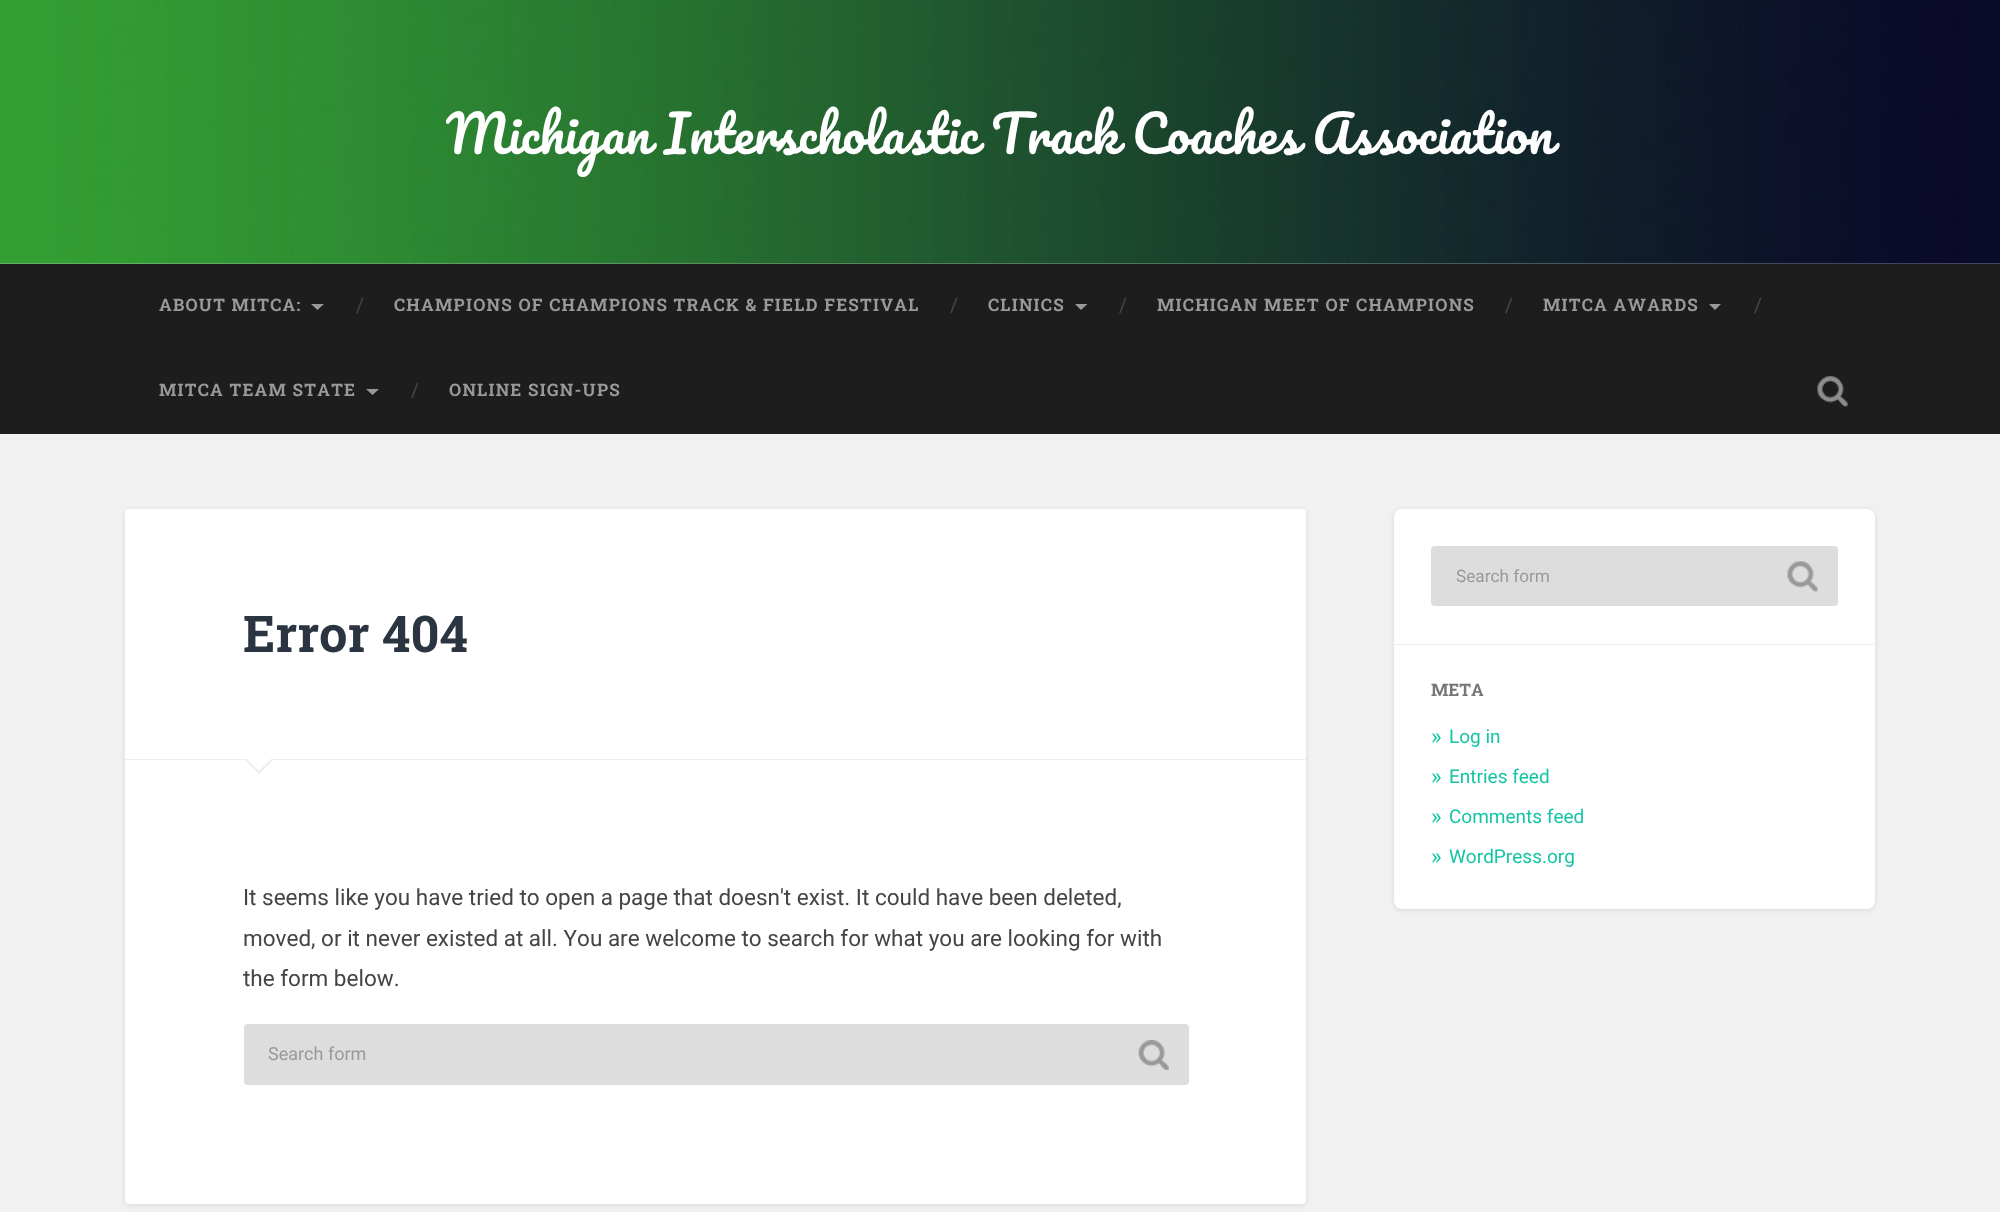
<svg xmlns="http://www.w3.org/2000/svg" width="2000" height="1212">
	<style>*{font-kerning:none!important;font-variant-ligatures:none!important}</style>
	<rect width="100%" height="100%" fill="#F1F1F1" />
	<image x="0" y="0" width="2000" height="264" href="assets/img1.png" />
	<text x="446" y="154" font-family="Pacifico" font-size="50.6" fill="#FFFFFF">Michigan Interscholastic Track Coaches Association</text>
	<rect x="0" y="264" width="2000" height="170" fill="#1D1D1D" />
	<text x="159" y="311" font-family="Roboto Slab" font-size="17.2" font-weight="700" letter-spacing="1.25" fill="#999999">ABOUT MITCA:</text>
	<path d="M311 304H324L317.5 310Z" fill="#999999" />
	<text x="356" y="312" font-family="Roboto Slab" font-size="20" fill="#444444">/</text>
	<text x="394" y="311" font-family="Roboto Slab" font-size="17.2" font-weight="700" letter-spacing="1.25" fill="#999999">CHAMPIONS OF CHAMPIONS TRACK &amp; FIELD FESTIVAL</text>
	<text x="950" y="312" font-family="Roboto Slab" font-size="20" fill="#444444">/</text>
	<text x="988" y="311" font-family="Roboto Slab" font-size="17.2" font-weight="700" letter-spacing="1.25" fill="#999999">CLINICS</text>
	<path d="M1075 304H1087.5L1081 310Z" fill="#999999" />
	<text x="1119" y="312" font-family="Roboto Slab" font-size="20" fill="#444444">/</text>
	<text x="1157" y="311" font-family="Roboto Slab" font-size="17.2" font-weight="700" letter-spacing="1.25" fill="#999999">MICHIGAN MEET OF CHAMPIONS</text>
	<text x="1505" y="312" font-family="Roboto Slab" font-size="20" fill="#444444">/</text>
	<text x="1543" y="311" font-family="Roboto Slab" font-size="17.2" font-weight="700" letter-spacing="1.25" fill="#999999">MITCA AWARDS</text>
	<path d="M1709 304H1721L1715 310Z" fill="#999999" />
	<text x="1754" y="312" font-family="Roboto Slab" font-size="20" fill="#444444">/</text>
	<text x="159" y="396" font-family="Roboto Slab" font-size="17.2" font-weight="700" letter-spacing="1.25" fill="#999999">MITCA TEAM STATE</text>
	<path d="M366 389H379L372.5 395Z" fill="#999999" />
	<text x="411" y="397" font-family="Roboto Slab" font-size="20" fill="#444444">/</text>
	<text x="449" y="396" font-family="Roboto Slab" font-size="17.2" font-weight="700" letter-spacing="1.25" fill="#999999">ONLINE SIGN-UPS</text>
	<image x="1817" y="376" width="31" height="31" href="assets/img2.png" />
	<rect x="125" y="510" width="1181" height="695" rx="4" fill="#000000" fill-opacity="0.1" filter="blur(2.5px)" />
	<rect x="125" y="509" width="1181" height="695" rx="4" fill="#FFFFFF" />
	<rect x="125" y="759" width="1181" height="1" fill="#EEEEEE" />
	<text x="243" y="652" font-family="Roboto Slab" font-size="50.6" font-weight="700" fill="#2B3542">Error 404</text>
	<path d="M244 759H274L259 774Z" fill="#EEEEEE" />
	<path d="M245 757.5H272.5L259 771Z" fill="#FFFFFF" />
	<g font-family="Roboto" font-size="22.5" fill="#444444">
		<text x="243" y="905">It seems like you have tried to open a page that doesn't exist. It could have been deleted,</text>
		<text x="243" y="946">moved, or it never existed at all. You are welcome to search for what you are looking for with</text>
		<text x="243" y="986">the form below.</text>
	</g>
	<rect x="244" y="1024" width="945" height="61" rx="4" fill="#DDDDDD" />
	<text x="268" y="1060" font-family="Roboto" font-size="18" fill="#999999">Search form</text>
	<image x="1138" y="1040" width="31" height="30" href="assets/img3.png" />
	<rect x="1394" y="510" width="481" height="400" rx="8" fill="#000000" fill-opacity="0.1" filter="blur(2.5px)" />
	<rect x="1394" y="509" width="481" height="400" rx="8" fill="#FFFFFF" />
	<rect x="1431" y="546" width="407" height="60" rx="4" fill="#DDDDDD" />
	<text x="1456" y="582" font-family="Roboto" font-size="17.2" fill="#999999">Search form</text>
	<image x="1787" y="561" width="31" height="31" href="assets/img4.png" />
	<rect x="1394" y="644" width="481" height="1" fill="#EEEEEE" />
	<text x="1431" y="696" font-family="Roboto Slab" font-size="17.2" font-weight="700" fill="#767676">META</text>
	<text x="1431" y="744" font-family="Roboto" font-size="22.5" fill="#13C4A5">»</text>
	<text x="1449" y="743" font-family="Roboto" font-size="19" fill="#13C4A5">Log in</text>
	<text x="1431" y="784" font-family="Roboto" font-size="22.5" fill="#13C4A5">»</text>
	<text x="1449" y="783" font-family="Roboto" font-size="19" fill="#13C4A5">Entries feed</text>
	<text x="1431" y="824" font-family="Roboto" font-size="22.5" fill="#13C4A5">»</text>
	<text x="1449" y="823" font-family="Roboto" font-size="19" fill="#13C4A5">Comments feed</text>
	<text x="1431" y="864" font-family="Roboto" font-size="22.5" fill="#13C4A5">»</text>
	<text x="1449" y="863" font-family="Roboto" font-size="19" fill="#13C4A5">WordPress.org</text>
</svg>
